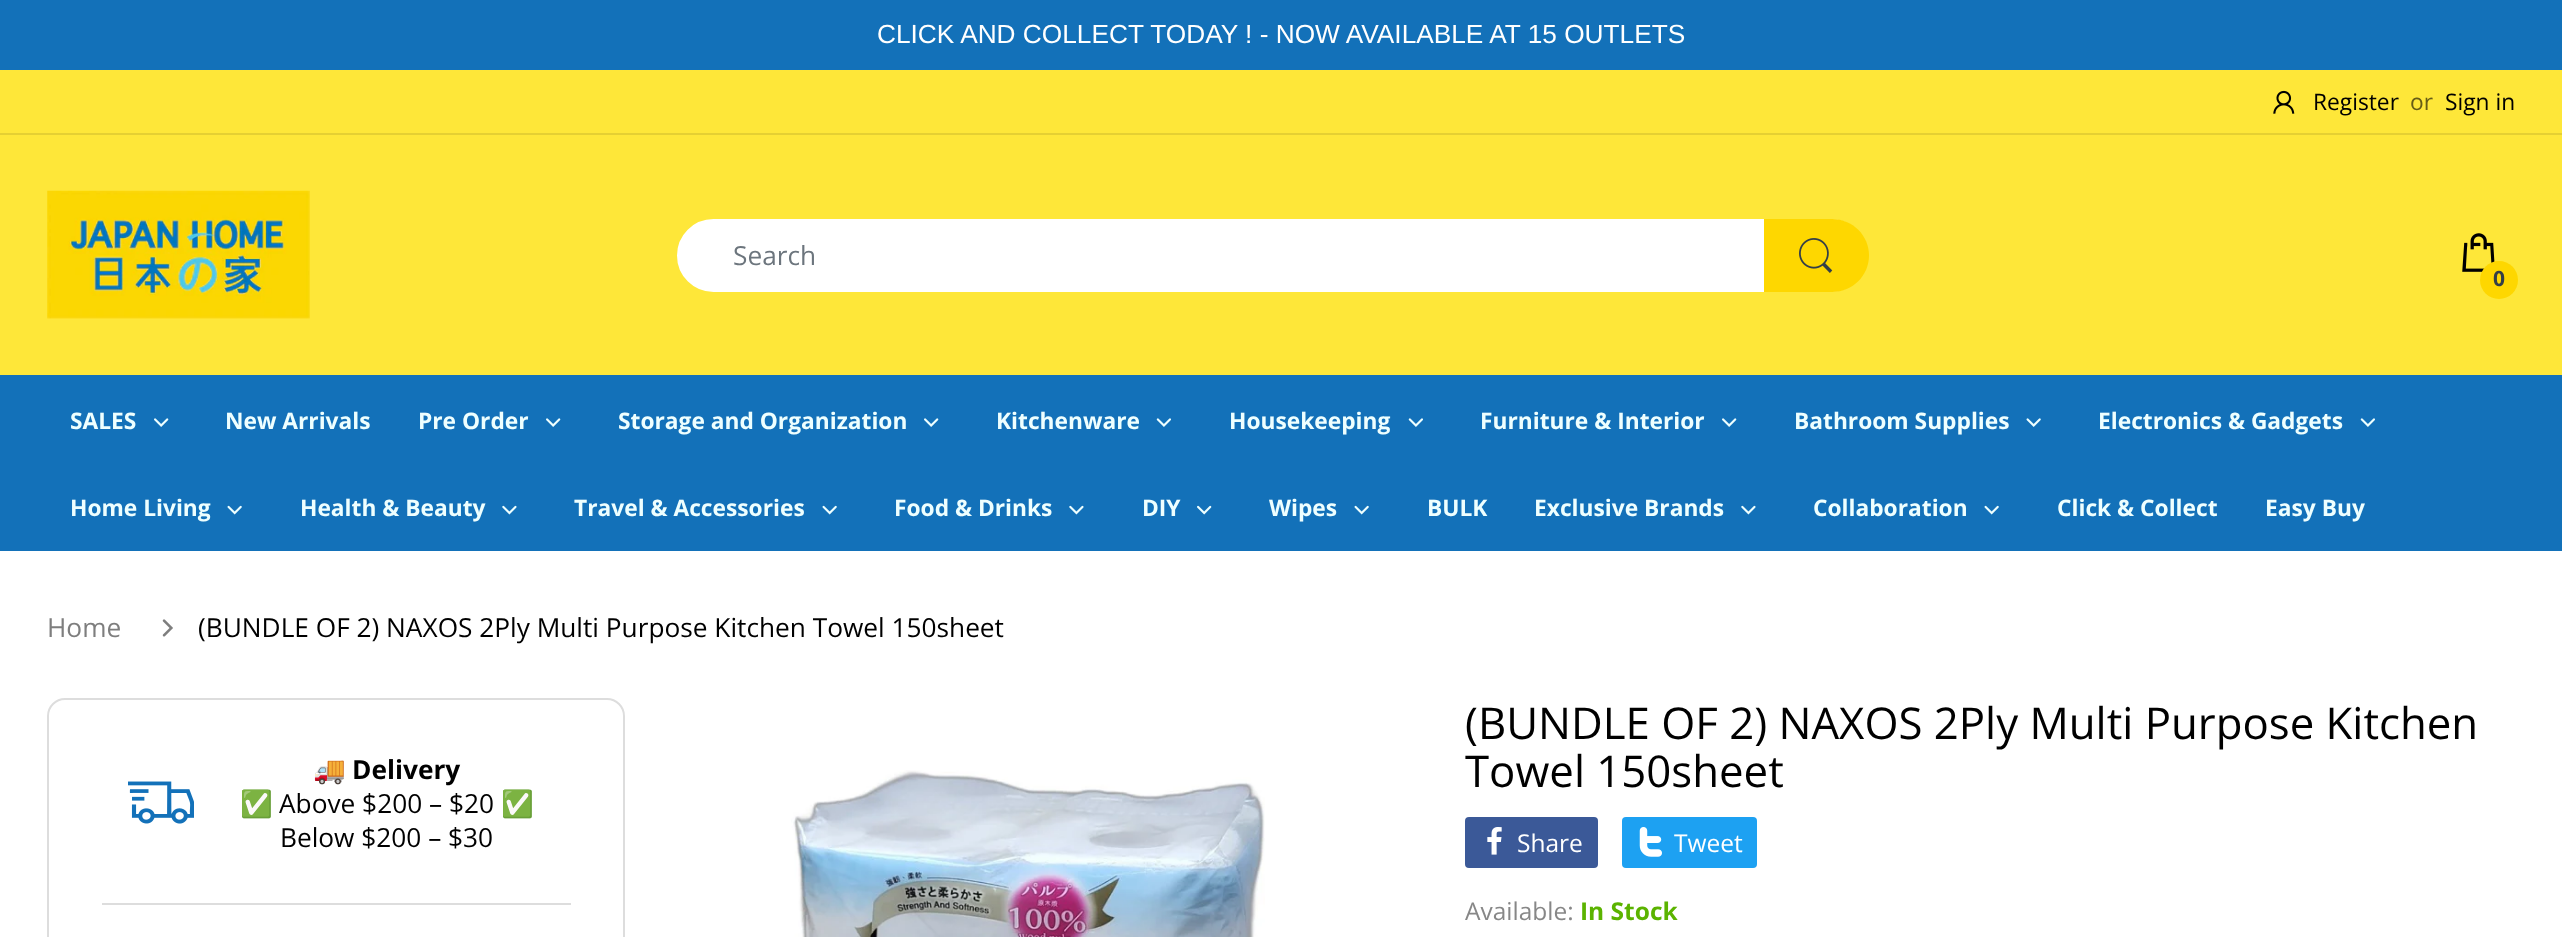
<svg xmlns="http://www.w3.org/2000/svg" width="2562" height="937">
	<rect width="100%" height="100%" fill="#FFFFFF" />
	<rect x="0" y="0" width="2562" height="70" fill="#1371B9" />
	<text x="877" y="43" font-family="Liberation Sans" font-size="26.25" fill="#FFFFFF">CLICK AND COLLECT TODAY ! - NOW AVAILABLE AT 15 OUTLETS</text>
	<rect x="0" y="70" width="2562" height="305" fill="#FEE739" />
	<rect x="0" y="133" width="2562" height="2" fill="#E5D033" />
	<image x="2273" y="90" width="22" height="24" href="assets/img1.png" />
	<text x="2313" y="110" font-family="Open Sans" font-size="22.75" fill="#000000">Register</text>
	<text x="2410" y="110" font-family="Open Sans" font-size="22.75" fill="#665C17">or</text>
	<text x="2445" y="110" font-family="Open Sans" font-size="22.75" fill="#000000">Sign in</text>
	<image x="47" y="190" width="263" height="129" href="assets/img2.png" />
	<rect x="679" y="221" width="1186" height="69" rx="34.5" fill="#FFFFFF" stroke="#FFFFFF" stroke-width="4" />
	<text x="733" y="265" font-family="Open Sans" font-size="26.25" fill="#6C757D">Search</text>
	<path d="M1764 219H1832.5C1852.5 219 1869 235.5 1869 255.5C1869 275.5 1852.5 292 1832.5 292H1764Z" fill="#FED700" />
	<image x="1799" y="238" width="34" height="35" href="assets/img3.png" />
	<image x="2462" y="233" width="33" height="39" href="assets/img4.png" />
	<circle cx="2499" cy="280" r="19" fill="#FED700" />
	<text x="2493" y="286" font-family="Open Sans" font-size="21" font-weight="700" fill="#333E48">0</text>
	<rect x="0" y="375" width="2562" height="176" fill="#1371B9" />
	<text x="70" y="429" font-family="Open Sans" font-size="22.75" font-weight="700" fill="#EEFFFF">SALES</text>
	<image x="154" y="418" width="15" height="9" href="assets/img5.png" />
	<g font-family="Open Sans" font-size="22.75" font-weight="700" fill="#EEFFFF">
		<text x="225" y="429">New Arrivals</text>
		<text x="418" y="429">Pre Order</text>
	</g>
	<image x="546" y="418" width="15" height="9" href="assets/img5.png" />
	<text x="618" y="429" font-family="Open Sans" font-size="22.75" font-weight="700" fill="#EEFFFF">Storage and Organization</text>
	<image x="924" y="418" width="15" height="9" href="assets/img5.png" />
	<text x="996" y="429" font-family="Open Sans" font-size="22.75" font-weight="700" fill="#EEFFFF">Kitchenware</text>
	<image x="1156" y="418" width="15" height="9" href="assets/img6.png" />
	<text x="1229" y="429" font-family="Open Sans" font-size="22.75" font-weight="700" fill="#EEFFFF">Housekeeping</text>
	<image x="1408" y="418" width="15" height="9" href="assets/img6.png" />
	<text x="1480" y="429" font-family="Open Sans" font-size="22.75" font-weight="700" fill="#EEFFFF">Furniture &amp; Interior</text>
	<image x="1722" y="418" width="15" height="9" href="assets/img5.png" />
	<text x="1794" y="429" font-family="Open Sans" font-size="22.75" font-weight="700" fill="#EEFFFF">Bathroom Supplies</text>
	<image x="2026" y="418" width="15" height="9" href="assets/img7.png" />
	<text x="2098" y="429" font-family="Open Sans" font-size="22.75" font-weight="700" fill="#EEFFFF">Electronics &amp; Gadgets</text>
	<image x="2360" y="418" width="15" height="9" href="assets/img6.png" />
	<text x="70" y="516" font-family="Open Sans" font-size="22.75" font-weight="700" fill="#EEFFFF">Home Living</text>
	<image x="227" y="505" width="15" height="10" href="assets/img8.png" />
	<text x="300" y="516" font-family="Open Sans" font-size="22.75" font-weight="700" fill="#EEFFFF">Health &amp; Beauty</text>
	<image x="502" y="505" width="15" height="10" href="assets/img9.png" />
	<text x="574" y="516" font-family="Open Sans" font-size="22.75" font-weight="700" fill="#EEFFFF">Travel &amp; Accessories</text>
	<image x="822" y="505" width="15" height="10" href="assets/img8.png" />
	<text x="894" y="516" font-family="Open Sans" font-size="22.75" font-weight="700" fill="#EEFFFF">Food &amp; Drinks</text>
	<image x="1069" y="505" width="15" height="10" href="assets/img9.png" />
	<text x="1142" y="516" font-family="Open Sans" font-size="22.75" font-weight="700" fill="#EEFFFF">DIY</text>
	<image x="1197" y="505" width="15" height="10" href="assets/img10.png" />
	<text x="1269" y="516" font-family="Open Sans" font-size="22.75" font-weight="700" fill="#EEFFFF">Wipes</text>
	<image x="1354" y="505" width="15" height="10" href="assets/img8.png" />
	<g font-family="Open Sans" font-size="22.75" font-weight="700" fill="#EEFFFF">
		<text x="1427" y="516">BULK</text>
		<text x="1534" y="516">Exclusive Brands</text>
	</g>
	<image x="1741" y="505" width="15" height="10" href="assets/img9.png" />
	<text x="1813" y="516" font-family="Open Sans" font-size="22.75" font-weight="700" fill="#EEFFFF">Collaboration</text>
	<image x="1984" y="505" width="15" height="10" href="assets/img8.png" />
	<g font-family="Open Sans" font-size="22.75" font-weight="700" fill="#EEFFFF">
		<text x="2057" y="516">Click &amp; Collect</text>
		<text x="2265" y="516">Easy Buy</text>
	</g>
	<text x="47" y="637" font-family="Open Sans" font-size="26.25" fill="#7E7E7E">Home</text>
	<image x="162" y="619" width="11" height="18" href="assets/img11.png" />
	<text x="198" y="637" font-family="Open Sans" font-size="26.25" fill="#000000">(BUNDLE OF 2) NAXOS 2Ply Multi Purpose Kitchen Towel 150sheet</text>
	<rect x="48" y="699" width="576" height="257" rx="17" fill="none" stroke="#DDDDDD" stroke-width="2" />
	<rect x="102" y="903" width="469" height="2" fill="#DDDDDD" />
	<image x="128" y="781" width="66" height="43" href="assets/img12.png" />
	<text x="313" y="779" font-family="Noto Color Emoji" font-size="26.25" font-weight="700" fill="#000000">🚚</text>
	<text x="352" y="779" font-family="Open Sans" font-size="26.25" font-weight="700" fill="#000000">Delivery</text>
	<text x="240" y="813" font-family="Noto Color Emoji" font-size="26.25" fill="#000000">✅</text>
	<text x="279" y="813" font-family="Open Sans" font-size="26.25" fill="#000000">Above $200 – $20</text>
	<text x="501" y="813" font-family="Noto Color Emoji" font-size="26.25" fill="#000000">✅</text>
	<text x="280" y="847" font-family="Open Sans" font-size="26.25" fill="#000000">Below $200 – $30</text>
	<image x="791" y="770" width="474" height="167" href="assets/img13.png" />
	<g font-family="Open Sans" font-size="43.75" fill="#000000">
		<text x="1465" y="739">(BUNDLE OF 2) NAXOS 2Ply Multi Purpose Kitchen</text>
		<text x="1465" y="787">Towel 150sheet</text>
	</g>
	<rect x="1465" y="817" width="133" height="51" rx="4" fill="#3B5998" />
	<image x="1487" y="827" width="15" height="28" href="assets/img14.png" />
	<text x="1517" y="852" font-family="Open Sans" font-size="24.5" fill="#FFFFFF">Share</text>
	<rect x="1622" y="817" width="135" height="51" rx="4" fill="#1DA1F2" />
	<image x="1639" y="827" width="23" height="30" href="assets/img15.png" />
	<text x="1674" y="852" font-family="Open Sans" font-size="24.5" fill="#FFFFFF">Tweet</text>
	<text x="1465" y="920" font-family="Open Sans" font-size="24.5" fill="#878787">Available:</text>
	<text x="1580" y="920" font-family="Open Sans" font-size="24.5" font-weight="700" fill="#5BB300">In Stock</text>
</svg>
